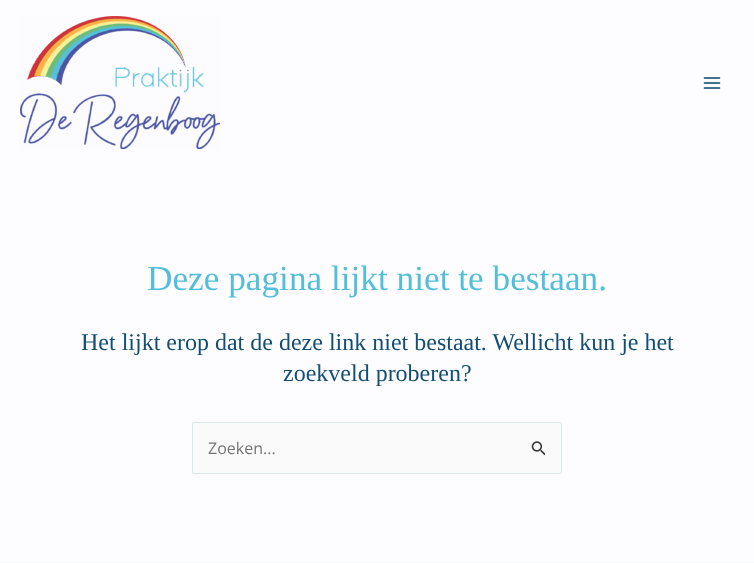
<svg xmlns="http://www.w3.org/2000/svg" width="754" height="563">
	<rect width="100%" height="100%" fill="#FDFDFF" />
	<image x="20" y="16" width="200" height="133" href="assets/img1.png" />
	<image x="703" y="77" width="18" height="12" href="assets/img2.png" />
	<text x="147" y="290" font-family="Liberation Serif" font-size="35.25" fill="#53BED9">Deze pagina lijkt niet te bestaan.</text>
	<g font-family="Liberation Serif" font-size="24" fill="#134F74">
		<text x="81" y="350">Het lijkt erop dat de deze link niet bestaat. Wellicht kun je het</text>
		<text x="283" y="381">zoekveld proberen?</text>
	</g>
	<rect x="192.5" y="422.5" width="369" height="51" rx="1.5" fill="#FAFAFA" stroke="#DBE8EB" />
	<text x="208" y="454" font-family="Open Sans" font-size="16" fill="#757575">Zoeken...</text>
	<image x="531" y="441" width="14" height="15" href="assets/img3.png" />
	<rect x="0" y="562" width="754" height="1" fill="#F3F8FB" />
</svg>
